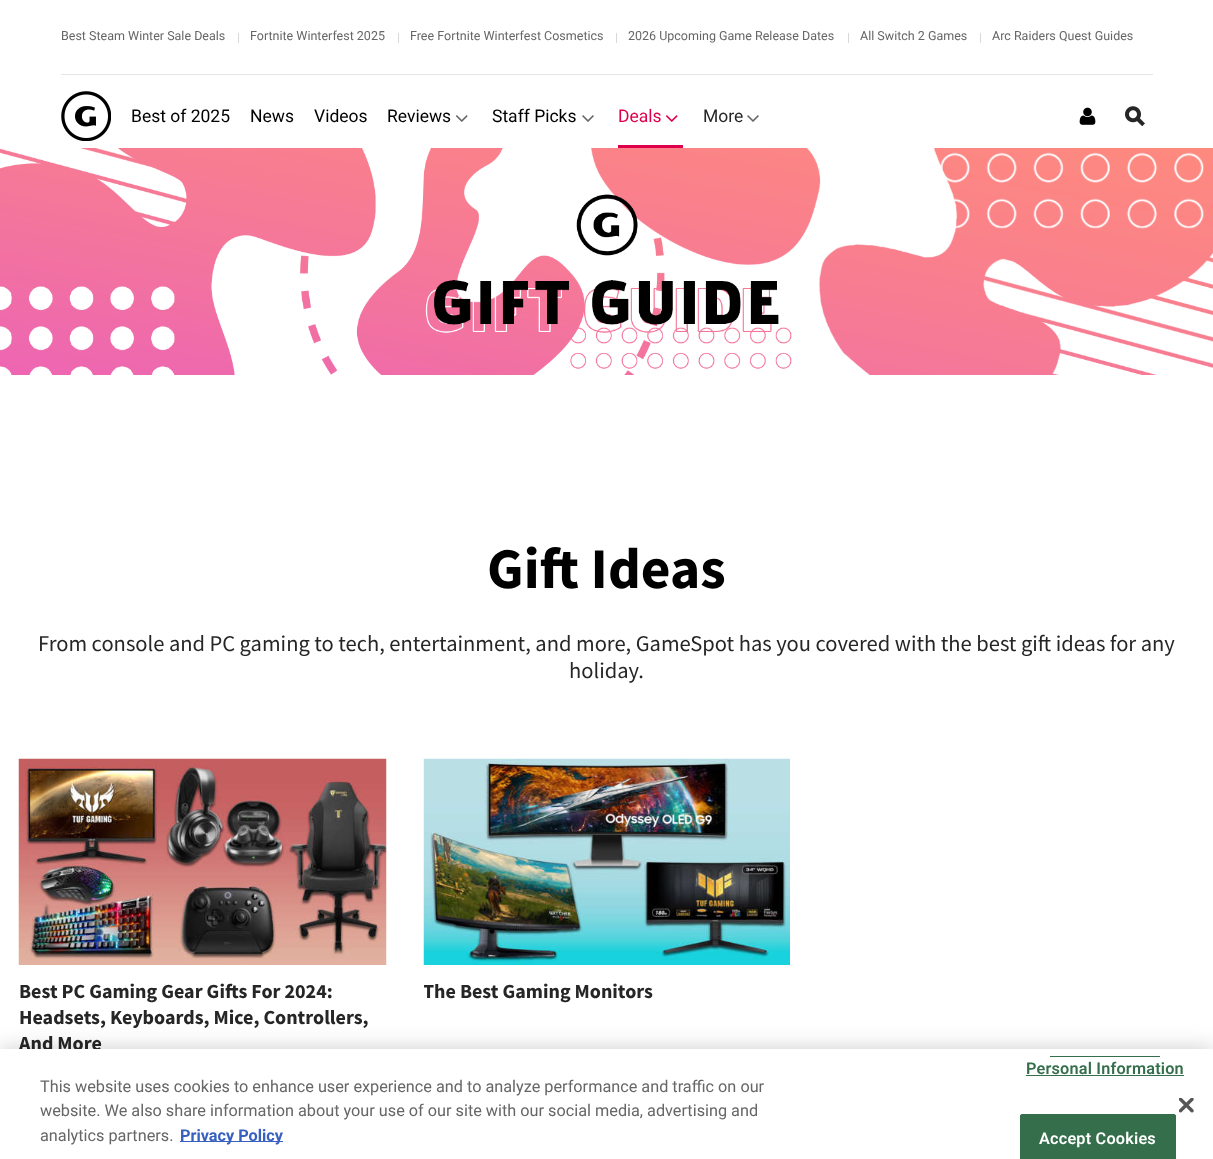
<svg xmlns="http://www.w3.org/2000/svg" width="1213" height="1159">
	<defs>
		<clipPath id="clip1"><rect x="424" y="965" width="366" height="49" /></clipPath>
	</defs>
	<rect width="100%" height="100%" fill="#FFFFFF" />
	<rect x="61" y="74" width="1092" height="1" fill="#E6E6E6" />
	<text x="61" y="40" font-family="Roboto" font-size="12.5" fill="#666666">Best Steam Winter Sale Deals</text>
	<rect x="238" y="33" width="1" height="10" fill="#D8D8D8" />
	<text x="250" y="40" font-family="Roboto" font-size="12.5" fill="#666666">Fortnite Winterfest 2025</text>
	<rect x="398" y="33" width="1" height="10" fill="#D8D8D8" />
	<text x="410" y="40" font-family="Roboto" font-size="12.5" fill="#666666">Free Fortnite Winterfest Cosmetics</text>
	<rect x="616" y="33" width="1" height="10" fill="#D8D8D8" />
	<text x="628" y="40" font-family="Roboto" font-size="12.5" fill="#666666">2026 Upcoming Game Release Dates</text>
	<rect x="848" y="33" width="1" height="10" fill="#D8D8D8" />
	<text x="860" y="40" font-family="Roboto" font-size="12.5" fill="#666666">All Switch 2 Games</text>
	<rect x="980" y="33" width="1" height="10" fill="#D8D8D8" />
	<text x="992" y="40" font-family="Roboto" font-size="12.5" fill="#666666">Arc Raiders Quest Guides</text>
	<image x="61" y="91" width="50" height="50" href="assets/img1.png" />
	<g font-family="Roboto" font-size="17.5" fill="#000000">
		<text x="131" y="122">Best of 2025</text>
		<text x="250" y="122">News</text>
		<text x="314" y="122">Videos</text>
		<text x="387" y="122">Reviews</text>
	</g>
	<image x="456" y="115" width="12" height="7" href="assets/img2.png" />
	<text x="492" y="122" font-family="Roboto" font-size="17.5" fill="#000000">Staff Picks</text>
	<image x="582" y="115" width="12" height="7" href="assets/img3.png" />
	<text x="618" y="122" font-family="Roboto" font-size="17.5" fill="#DE004A">Deals</text>
	<image x="666" y="115" width="12" height="7" href="assets/img4.png" />
	<rect x="618" y="145" width="65" height="3" fill="#DE004A" />
	<text x="703" y="122" font-family="Roboto" font-size="17.5" fill="#262626">More</text>
	<image x="747" y="115" width="12" height="7" href="assets/img3.png" />
	<image x="1079" y="107" width="17" height="18" href="assets/img5.png" />
	<image x="1125" y="106" width="20" height="20" href="assets/img6.png" />
	<image x="0" y="148" width="1213" height="227" href="assets/img7.png" />
	<text x="487" y="588" font-family="Source Sans Pro" font-size="57.5" font-weight="700" fill="#000000">Gift Ideas</text>
	<g font-family="Source Sans Pro" font-size="22.5" fill="#262626">
		<text x="38" y="651">From console and PC gaming to tech, entertainment, and more, GameSpot has you covered with the best gift ideas for any</text>
		<text x="569" y="678">holiday.</text>
	</g>
	<image x="18" y="758" width="369" height="207" href="assets/img8.png" />
	<g font-family="Source Sans Pro" font-size="20" font-weight="700" fill="#262626">
		<text x="19" y="998">Best PC Gaming Gear Gifts For 2024:</text>
		<text x="19" y="1024">Headsets, Keyboards, Mice, Controllers,</text>
		<text x="19" y="1050">And More</text>
	</g>
	<image x="423" y="758" width="367" height="207" href="assets/img9.png" />
	<g clip-path="url(#clip1)">
		<text x="423" y="998" font-family="Source Sans Pro" font-size="20" font-weight="700" fill="#262626">The Best Gaming Monitors</text>
	</g>
	<rect x="0" y="1049" width="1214" height="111" fill="#000000" fill-opacity="0.2" filter="blur(11px)" />
	<rect x="0" y="1049" width="1213" height="110" fill="#FFFFFF" />
	<g font-family="Roboto" font-size="16.25" fill="#666666">
		<text x="40" y="1092">This website uses cookies to enhance user experience and to analyze performance and traffic on our</text>
		<text x="40" y="1116">website. We also share information about your use of our site with our social media, advertising and</text>
		<text x="40" y="1141">analytics partners.</text>
	</g>
	<rect x="180" y="1141" width="103" height="1" fill="#3860BE" />
	<text x="180" y="1141" font-family="Roboto" font-size="16.25" font-weight="700" fill="#3860BE">Privacy Policy</text>
	<text x="1026" y="1074" font-family="Roboto" font-size="16.25" font-weight="600" letter-spacing="0.2" fill="#346E4A">Personal Information</text>
	<rect x="1050" y="1056" width="110" height="1" fill="#346E4A" />
	<rect x="1026" y="1075" width="158" height="1" fill="#346E4A" />
	<path d="M1022.5 1114H1173.5C1175 1114 1176 1115 1176 1116.5V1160H1020V1116.5C1020 1115 1021 1114 1022.5 1114Z" fill="#346E4A" />
	<rect x="1020.5" y="1114.5" width="155" height="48" rx="2" fill="none" stroke="#346E4A" />
	<text x="1039" y="1144" font-family="Roboto" font-size="16.25" font-weight="600" letter-spacing="0.2" fill="#FFFFFF">Accept Cookies</text>
	<image x="1179" y="1098" width="15" height="15" href="assets/img10.png" />
</svg>
